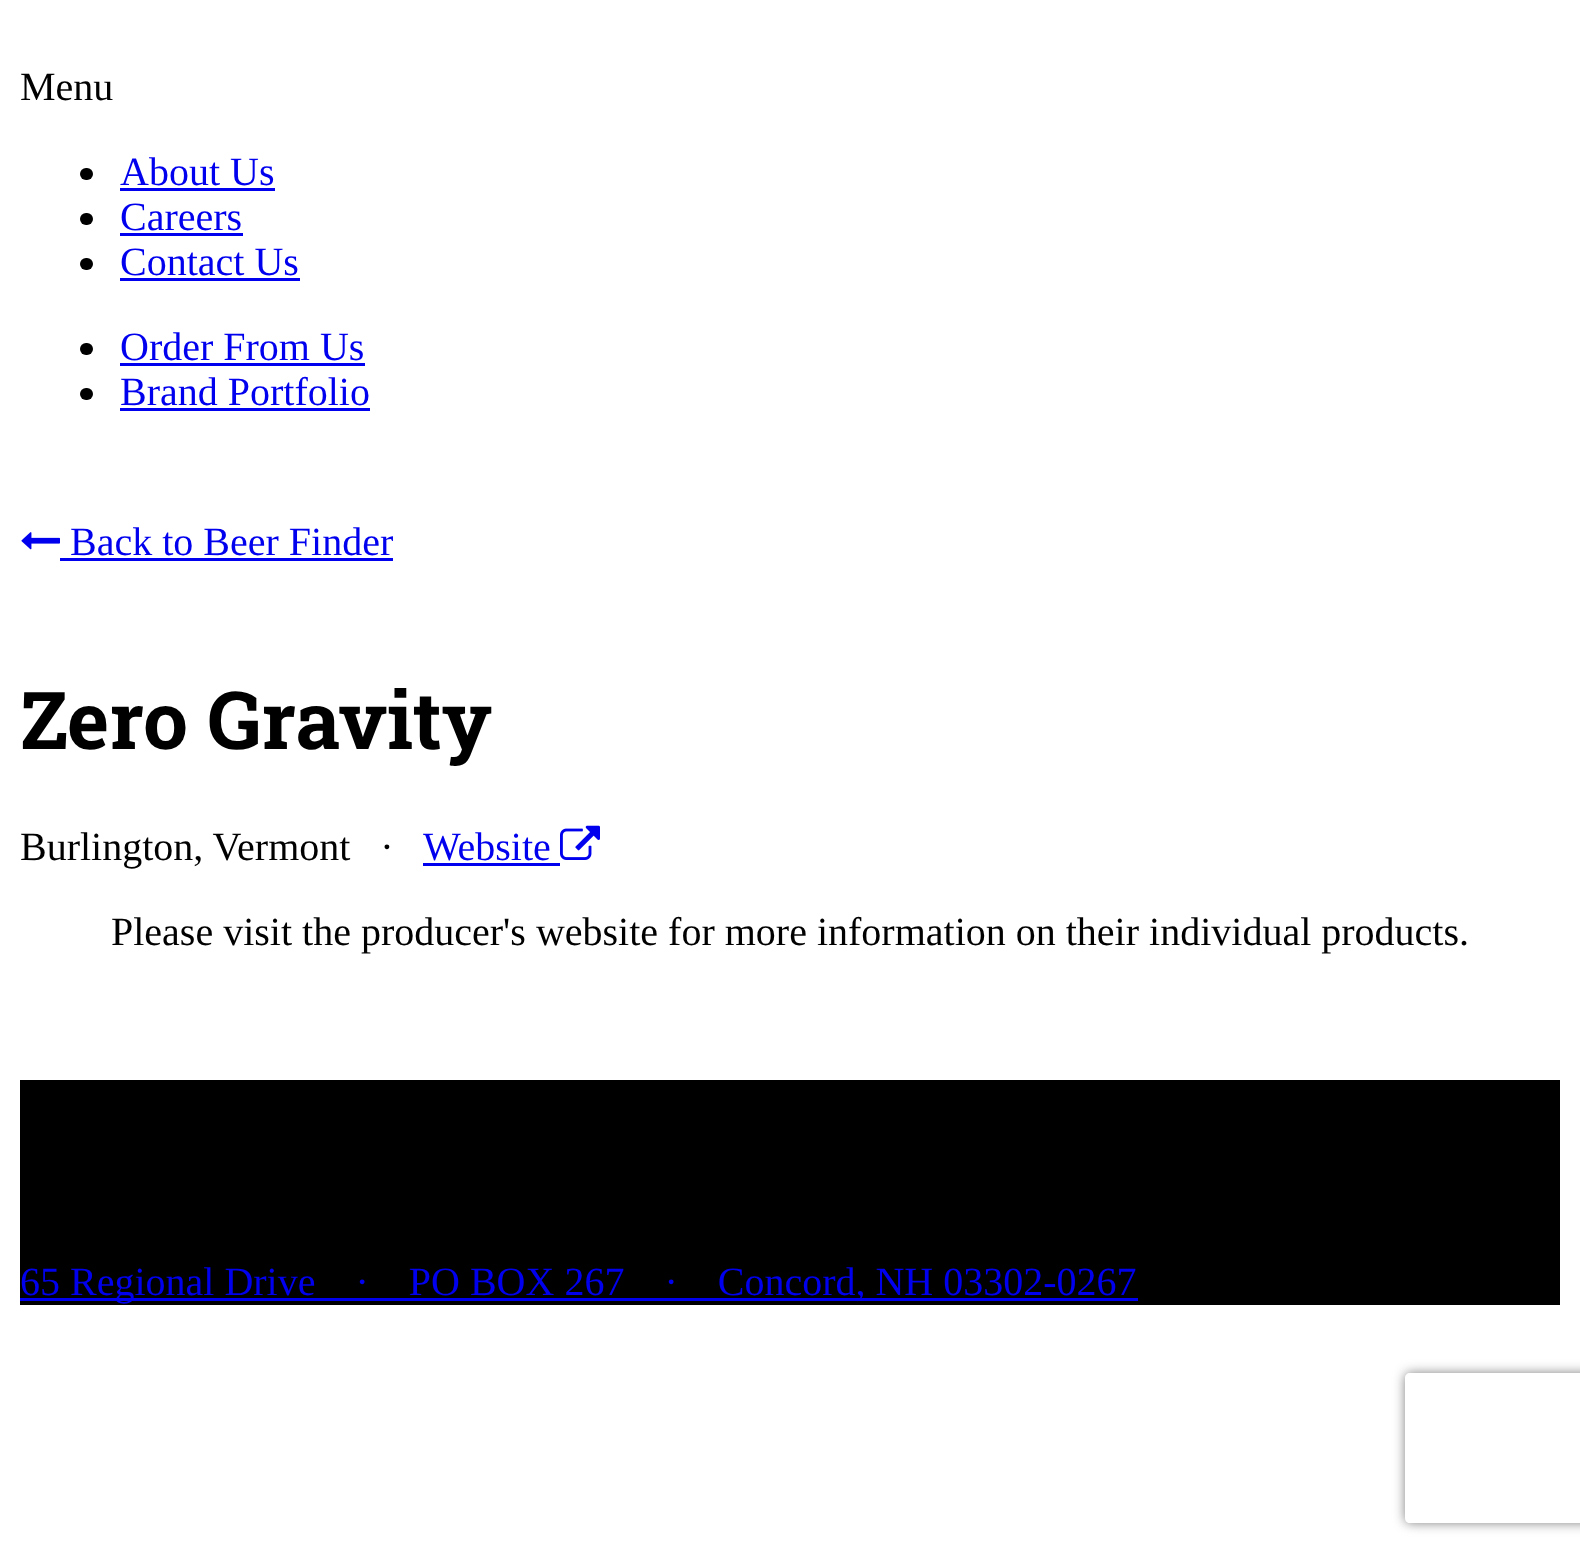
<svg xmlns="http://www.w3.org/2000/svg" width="1580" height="1556">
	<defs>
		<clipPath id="clip1"><path d="M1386 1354H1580V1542H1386ZM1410 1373H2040C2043 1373 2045 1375 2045 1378V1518C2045 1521 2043 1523 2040 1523H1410C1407 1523 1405 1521 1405 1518V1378C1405 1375 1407 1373 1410 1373Z" clip-rule="evenodd" /></clipPath>
	</defs>
	<rect width="100%" height="100%" fill="#FFFFFF" />
	<text x="20" y="100" font-family="Liberation Serif" font-size="40" fill="#000000">Menu</text>
	<rect x="80" y="168" width="13" height="12" rx="6" fill="#000000" />
	<text x="120" y="185" font-family="Liberation Serif" font-size="40" fill="#0000EE">About Us</text>
	<rect x="120" y="188" width="155" height="3" fill="#0000EE" />
	<rect x="80" y="213" width="13" height="12" rx="6" fill="#000000" />
	<text x="120" y="230" font-family="Liberation Serif" font-size="40" fill="#0000EE">Careers</text>
	<rect x="120" y="233" width="123" height="3" fill="#0000EE" />
	<rect x="80" y="258" width="13" height="12" rx="6" fill="#000000" />
	<text x="120" y="275" font-family="Liberation Serif" font-size="40" fill="#0000EE">Contact Us</text>
	<rect x="120" y="278" width="180" height="3" fill="#0000EE" />
	<rect x="80" y="343" width="13" height="12" rx="6" fill="#000000" />
	<text x="120" y="360" font-family="Liberation Serif" font-size="40" fill="#0000EE">Order From Us</text>
	<rect x="120" y="363" width="245" height="3" fill="#0000EE" />
	<rect x="80" y="388" width="13" height="12" rx="6" fill="#000000" />
	<text x="120" y="405" font-family="Liberation Serif" font-size="40" fill="#0000EE">Brand Portfolio</text>
	<rect x="120" y="408" width="250" height="3" fill="#0000EE" />
	<image x="21" y="532" width="39" height="18" href="assets/img1.png" />
	<text x="70" y="555" font-family="Liberation Serif" font-size="40" fill="#0000EE">Back to Beer Finder</text>
	<rect x="60" y="558" width="333" height="3" fill="#0000EE" />
	<text x="20" y="749" font-family="Roboto Slab" font-size="80" font-weight="700" fill="#000000">Zero Gravity</text>
	<text x="20" y="860" font-family="Liberation Serif" font-size="40" fill="#000000" xml:space="preserve">Burlington, Vermont   ·</text>
	<text x="423" y="860" font-family="Liberation Serif" font-size="40" fill="#0000EE">Website</text>
	<rect x="423" y="863" width="137" height="3" fill="#0000EE" />
	<image x="560" y="825" width="40" height="35" href="assets/img2.png" />
	<text x="111" y="945" font-family="Liberation Serif" font-size="40" fill="#000000">Please visit the producer's website for more information on their individual products.</text>
	<rect x="20" y="1080" width="1540" height="225" fill="#000000" />
	<rect x="20" y="1298" width="1118" height="3" fill="#0000EE" />
	<text x="20" y="1295" font-family="Liberation Serif" font-size="40" fill="#0000EE" xml:space="preserve">65 Regional Drive    ·    PO BOX 267    ·    Concord, NH 03302-0267</text>
	<g clip-path="url(#clip1)">
		<rect x="1405" y="1373" width="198" height="150" rx="5" fill="#808080" filter="blur(6px)" />
	</g>
</svg>
